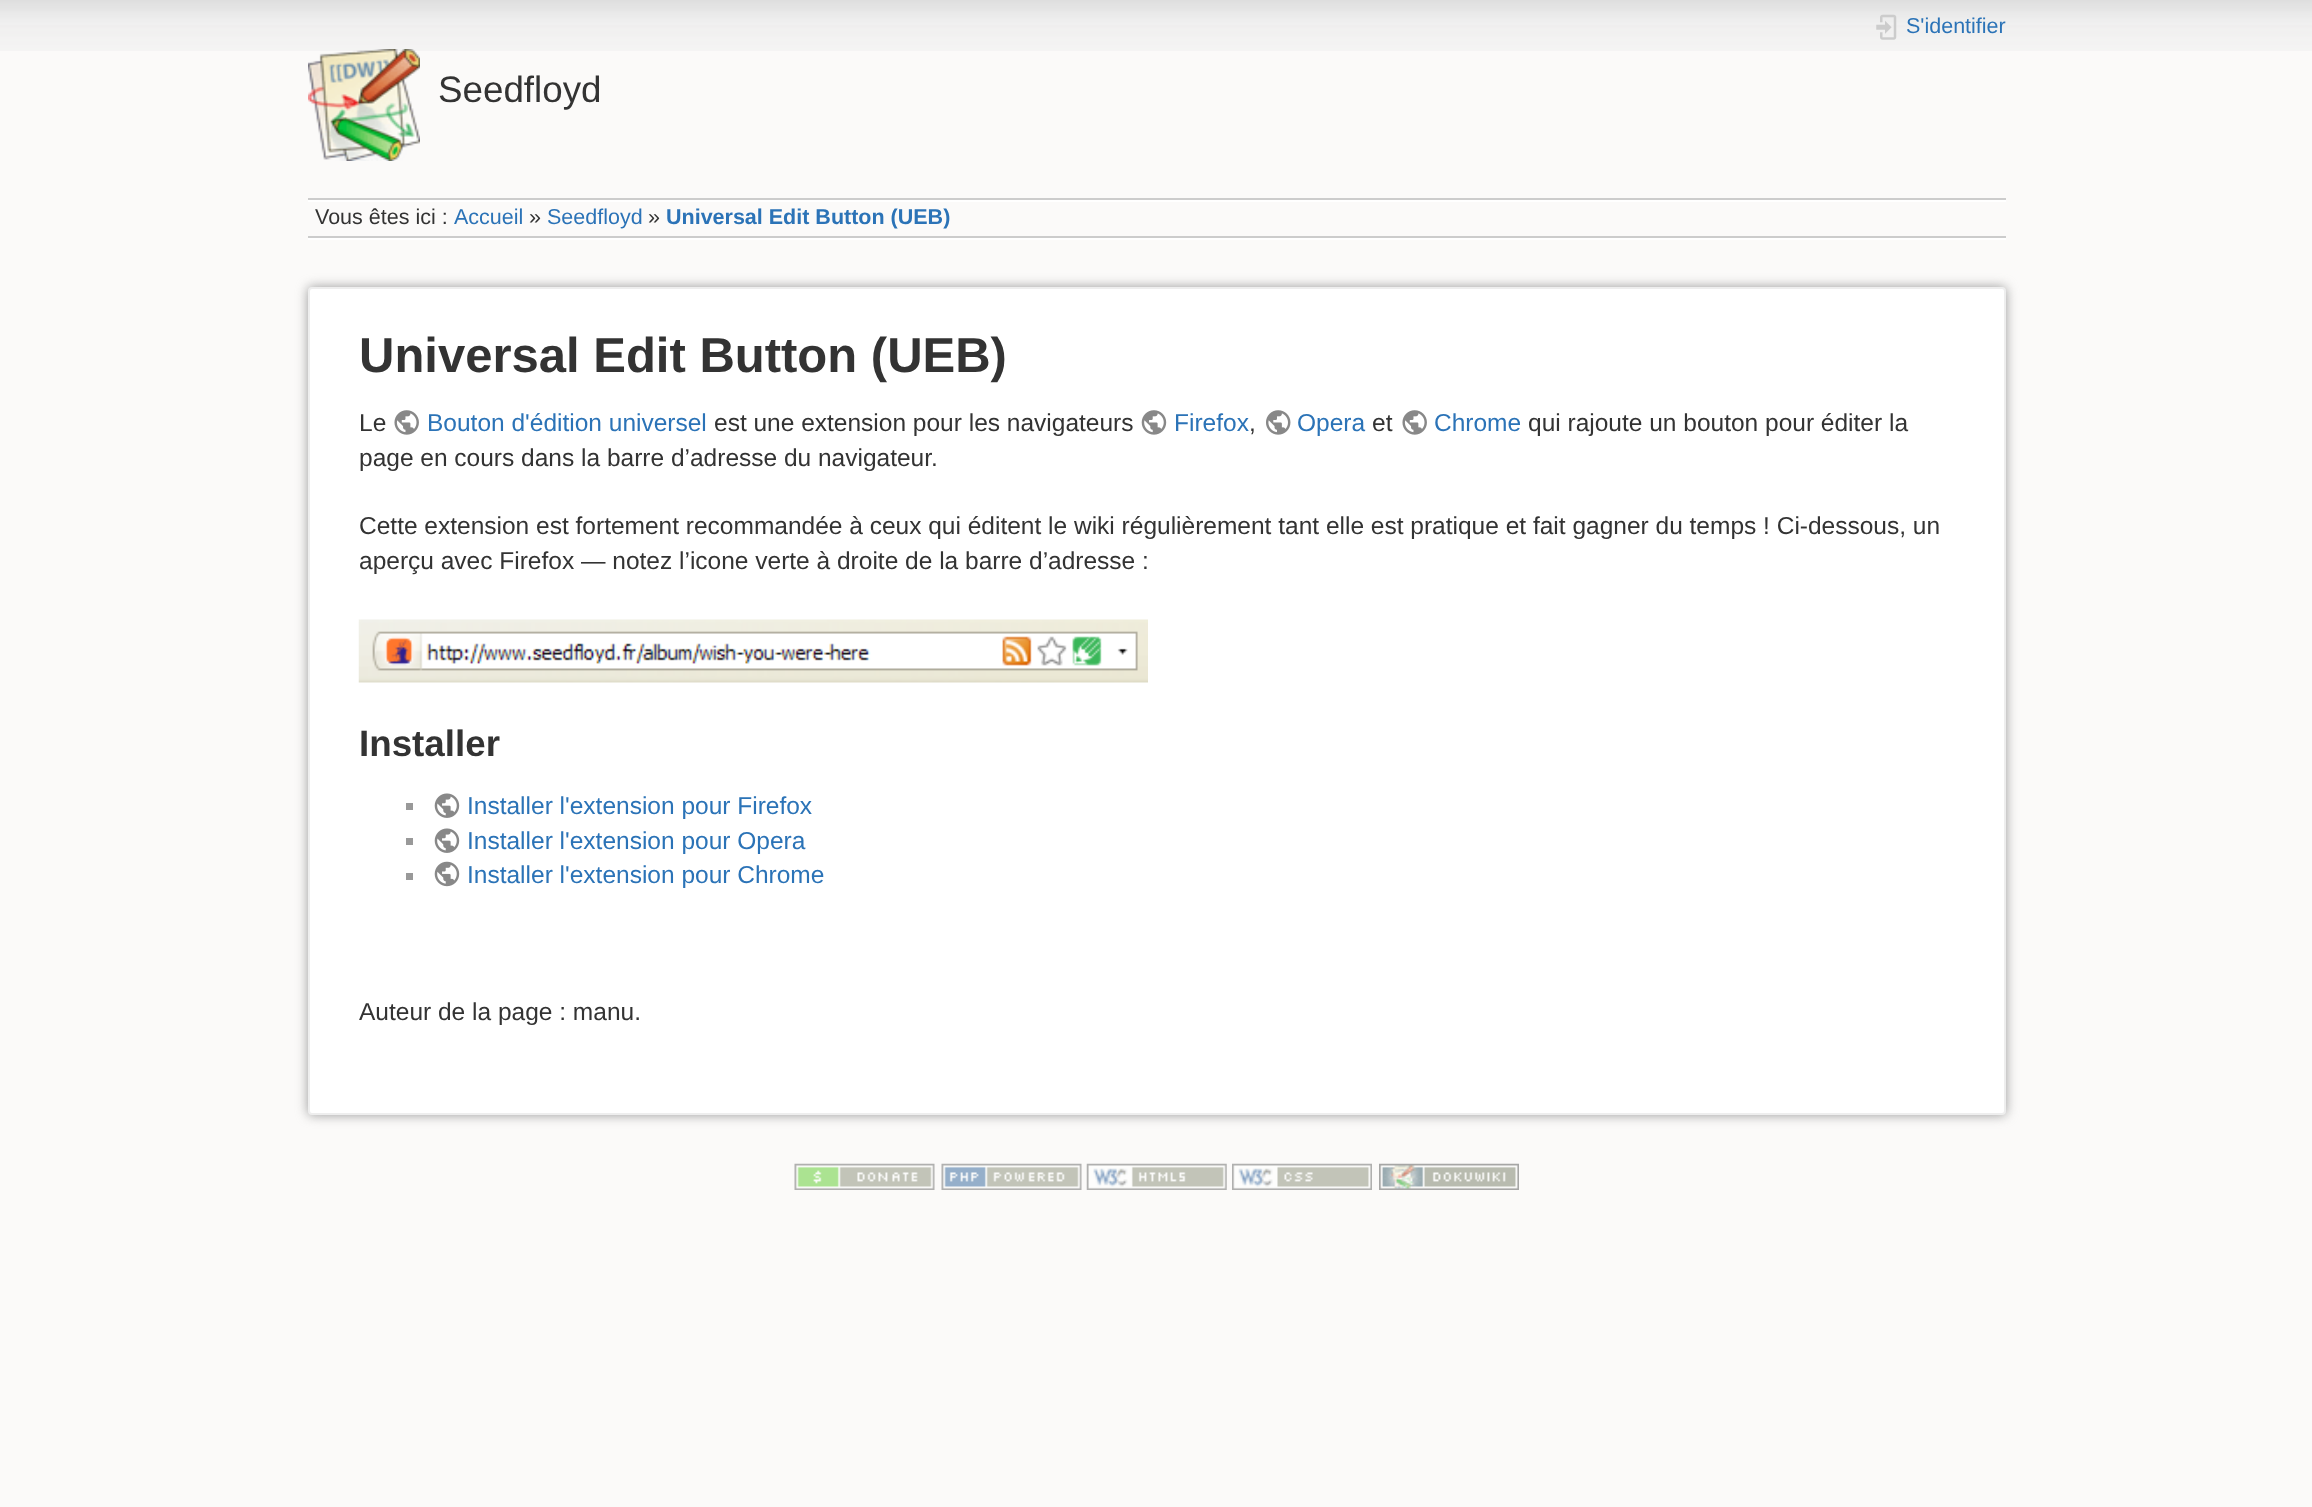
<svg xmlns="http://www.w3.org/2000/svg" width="2312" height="1507">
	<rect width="100%" height="100%" fill="#FBFAF9" />
	<image x="0" y="0" width="2312" height="51" href="assets/img1.png" />
	<image x="1876" y="14" width="21" height="26" href="assets/img2.png" />
	<text x="1906" y="33" font-family="Liberation Sans" font-size="21.5" fill="#2B73B7">S'identifier</text>
	<image x="308" y="49" width="112" height="112" href="assets/img3.png" />
	<text x="438" y="102" font-family="Liberation Sans" font-size="36.75" fill="#333333">Seedfloyd</text>
	<rect x="308" y="198" width="1698" height="2" fill="#CCCCCC" />
	<rect x="308" y="238" width="1698" height="2" fill="#FFFFFF" />
	<rect x="308" y="200" width="1698" height="2" fill="#FFFFFF" />
	<rect x="308" y="236" width="1698" height="2" fill="#CCCCCC" />
	<text x="315" y="224" font-family="Liberation Sans" font-size="21.5" fill="#333333">Vous êtes ici :</text>
	<text x="454" y="224" font-family="Liberation Sans" font-size="21.5" fill="#2B73B7">Accueil</text>
	<text x="529" y="224" font-family="Liberation Sans" font-size="21.5" fill="#333333">»</text>
	<text x="547" y="224" font-family="Liberation Sans" font-size="21.5" fill="#2B73B7">Seedfloyd</text>
	<text x="648" y="224" font-family="Liberation Sans" font-size="21.5" fill="#333333">»</text>
	<text x="666" y="224" font-family="Liberation Sans" font-size="21.5" font-weight="700" fill="#2B73B7">Universal Edit Button (UEB)</text>
	<rect x="308" y="287" width="1698" height="828" rx="4" fill="#999999" filter="blur(6px)" />
	<rect x="309" y="288" width="1696" height="826" rx="3" fill="#FFFFFF" stroke="#EEEEEE" stroke-width="2" />
	<text x="359" y="372" font-family="Liberation Sans" font-size="49" font-weight="700" fill="#333333">Universal Edit Button (UEB)</text>
	<text x="359" y="431" font-family="Liberation Sans" font-size="24.5" fill="#333333">Le</text>
	<image x="394" y="410" width="25" height="25" href="assets/img4.png" />
	<text x="427" y="431" font-family="Liberation Sans" font-size="24.5" fill="#2B73B7">Bouton d'édition universel</text>
	<text x="714" y="431" font-family="Liberation Sans" font-size="24.5" fill="#333333">est une extension pour les navigateurs</text>
	<image x="1141" y="410" width="26" height="25" href="assets/img5.png" />
	<text x="1174" y="431" font-family="Liberation Sans" font-size="24.5" fill="#2B73B7">Firefox</text>
	<text x="1249" y="431" font-family="Liberation Sans" font-size="24.5" fill="#333333">,</text>
	<image x="1266" y="410" width="25" height="25" href="assets/img6.png" />
	<text x="1297" y="431" font-family="Liberation Sans" font-size="24.5" fill="#2B73B7">Opera</text>
	<text x="1372" y="431" font-family="Liberation Sans" font-size="24.5" fill="#333333">et</text>
	<image x="1402" y="410" width="25" height="25" href="assets/img4.png" />
	<text x="1434" y="431" font-family="Liberation Sans" font-size="24.5" fill="#2B73B7">Chrome</text>
	<g font-family="Liberation Sans" font-size="24.5" fill="#333333">
		<text x="1528" y="431">qui rajoute un bouton pour éditer la</text>
		<text x="359" y="466">page en cours dans la barre d’adresse du navigateur.</text>
		<text x="359" y="534">Cette extension est fortement recommandée à ceux qui éditent le wiki régulièrement tant elle est pratique et fait gagner du temps ! Ci-dessous, un</text>
		<text x="359" y="569">aperçu avec Firefox — notez l’icone verte à droite de la barre d’adresse :</text>
	</g>
	<image x="358" y="619" width="790" height="64" href="assets/img7.png" />
	<text x="359" y="756" font-family="Liberation Sans" font-size="36.75" font-weight="700" fill="#333333">Installer</text>
	<rect x="406" y="803" width="7" height="7" fill="#999999" />
	<image x="434" y="793" width="26" height="25" href="assets/img8.png" />
	<text x="467" y="814" font-family="Liberation Sans" font-size="24.5" fill="#2B73B7">Installer l'extension pour Firefox</text>
	<rect x="406" y="838" width="7" height="7" fill="#999999" />
	<image x="434" y="828" width="26" height="25" href="assets/img8.png" />
	<text x="467" y="849" font-family="Liberation Sans" font-size="24.5" fill="#2B73B7">Installer l'extension pour Opera</text>
	<rect x="406" y="873" width="7" height="7" fill="#999999" />
	<image x="434" y="861" width="26" height="26" href="assets/img9.png" />
	<text x="467" y="883" font-family="Liberation Sans" font-size="24.5" fill="#2B73B7">Installer l'extension pour Chrome</text>
	<text x="359" y="1020" font-family="Liberation Sans" font-size="24.5" fill="#333333">Auteur de la page : manu.</text>
	<image x="794" y="1163" width="141" height="27" href="assets/img10.png" />
	<image x="941" y="1163" width="141" height="27" href="assets/img11.png" />
	<image x="1086" y="1163" width="141" height="27" href="assets/img12.png" />
	<image x="1232" y="1163" width="140" height="27" href="assets/img13.png" />
	<image x="1379" y="1163" width="140" height="27" href="assets/img14.png" />
</svg>
